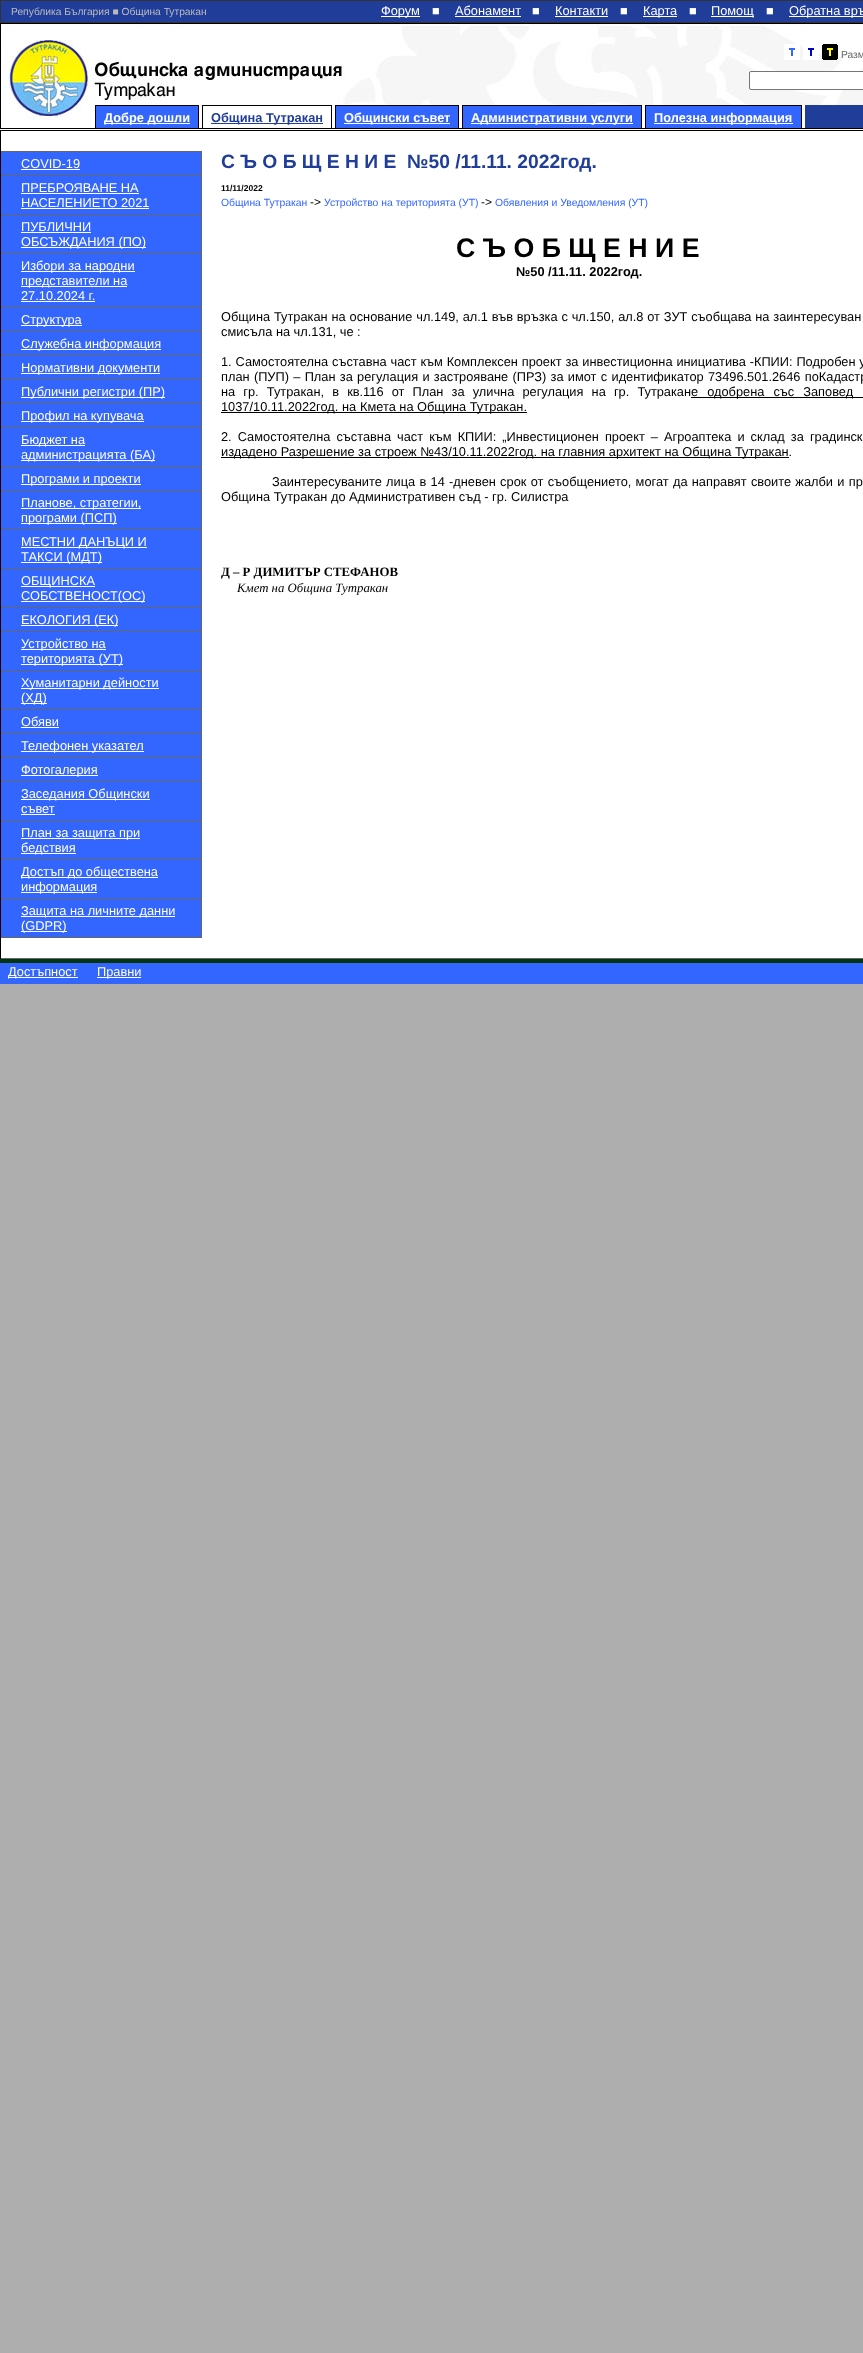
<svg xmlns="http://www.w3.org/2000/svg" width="863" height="2353">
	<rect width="100%" height="100%" fill="#AEAEAE" />
	<rect x="0" y="120" width="863" height="838" fill="#FFFFFF" />
	<rect x="0.5" y="0.5" width="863" height="22" fill="#1F3D99" stroke="#333333" />
	<text x="11" y="15" font-family="Liberation Sans" font-size="10.25" fill="#BBBBBB">Република България ■ Община Тутракан</text>
	<rect x="381" y="16" width="39" height="1" fill="#FFFFFF" />
	<g font-family="Liberation Sans" font-size="12.8" fill="#FFFFFF">
		<text x="381" y="15">Форум</text>
		<text x="432" y="15">■</text>
		<text x="455" y="15">Абонамент</text>
	</g>
	<rect x="455" y="16" width="66" height="1" fill="#FFFFFF" />
	<g font-family="Liberation Sans" font-size="12.8" fill="#FFFFFF">
		<text x="532" y="15">■</text>
		<text x="555" y="15">Контакти</text>
	</g>
	<rect x="555" y="16" width="53" height="1" fill="#FFFFFF" />
	<text x="620" y="15" font-family="Liberation Sans" font-size="12.8" fill="#FFFFFF">■</text>
	<rect x="643" y="16" width="34" height="1" fill="#FFFFFF" />
	<g font-family="Liberation Sans" font-size="12.8" fill="#FFFFFF">
		<text x="643" y="15">Карта</text>
		<text x="689" y="15">■</text>
	</g>
	<rect x="711" y="16" width="43" height="1" fill="#FFFFFF" />
	<g font-family="Liberation Sans" font-size="12.8" fill="#FFFFFF">
		<text x="711" y="15">Помощ</text>
		<text x="766" y="15">■</text>
	</g>
	<rect x="789" y="16" width="74" height="1" fill="#FFFFFF" />
	<text x="789" y="15" font-family="Liberation Sans" font-size="12.8" fill="#FFFFFF">Обратна връ</text>
	<image x="1" y="24" width="862" height="96" href="assets/img1.png" />
	<rect x="0.5" y="23.5" width="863" height="105" fill="none" stroke="#000000" />
	<rect x="789" y="48" width="6" height="8" fill="#3366FF" />
	<image x="784" y="44" width="16" height="16" href="assets/img2.png" />
	<image x="803" y="44" width="16" height="16" href="assets/img3.png" />
	<image x="822" y="44" width="16" height="16" href="assets/img4.png" />
	<text x="841" y="58" font-family="Liberation Sans" font-size="10.25" fill="#666666">Разм</text>
	<rect x="749.5" y="71.5" width="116" height="18" rx="1.5" fill="#FFFFFF" stroke="#767676" />
	<rect x="343" y="105" width="462" height="4" fill="#FFFFFF" />
	<rect x="96" y="106" width="102" height="22" fill="#3366FF" />
	<rect x="95" y="105" width="104" height="1" fill="#000000" />
	<rect x="198" y="105" width="1" height="23" fill="#000000" />
	<rect x="95" y="105" width="1" height="23" fill="#000000" />
	<rect x="104" y="123" width="86" height="1" fill="#FFFFFF" />
	<text x="104" y="122" font-family="Liberation Sans" font-size="12.8" font-weight="700" fill="#FFFFFF">Добре дошли</text>
	<rect x="202" y="105" width="130" height="1" fill="#000000" />
	<rect x="331" y="105" width="1" height="23" fill="#000000" />
	<rect x="202" y="105" width="1" height="23" fill="#000000" />
	<rect x="211" y="123" width="112" height="1" fill="#1F3D99" />
	<text x="211" y="122" font-family="Liberation Sans" font-size="12.8" font-weight="700" fill="#1F3D99">Община Тутракан</text>
	<rect x="336" y="106" width="122" height="22" fill="#3366FF" />
	<rect x="335" y="105" width="124" height="1" fill="#000000" />
	<rect x="458" y="105" width="1" height="23" fill="#000000" />
	<rect x="335" y="105" width="1" height="23" fill="#000000" />
	<rect x="344" y="123" width="106" height="1" fill="#FFFFFF" />
	<text x="344" y="122" font-family="Liberation Sans" font-size="12.8" font-weight="700" fill="#FFFFFF">Общински съвет</text>
	<rect x="463" y="106" width="178" height="22" fill="#3366FF" />
	<rect x="462" y="105" width="180" height="1" fill="#000000" />
	<rect x="641" y="105" width="1" height="23" fill="#000000" />
	<rect x="462" y="105" width="1" height="23" fill="#000000" />
	<rect x="471" y="123" width="162" height="1" fill="#FFFFFF" />
	<text x="471" y="122" font-family="Liberation Sans" font-size="12.8" font-weight="700" fill="#FFFFFF">Административни услуги</text>
	<rect x="646" y="106" width="155" height="22" fill="#3366FF" />
	<rect x="645" y="105" width="157" height="1" fill="#000000" />
	<rect x="801" y="105" width="1" height="23" fill="#000000" />
	<rect x="645" y="105" width="1" height="23" fill="#000000" />
	<rect x="654" y="123" width="139" height="1" fill="#FFFFFF" />
	<text x="654" y="122" font-family="Liberation Sans" font-size="12.8" font-weight="700" fill="#FFFFFF">Полезна информация</text>
	<rect x="805" y="105" width="58" height="23" fill="#1F3D99" />
	<rect x="0" y="130" width="863" height="1" fill="#000000" />
	<rect x="0" y="958" width="863" height="1" fill="#666666" />
	<rect x="0" y="130" width="1" height="829" fill="#000000" />
	<rect x="1" y="151" width="201" height="1" fill="#666666" />
	<rect x="201" y="151" width="1" height="787" fill="#666666" />
	<rect x="1" y="152" width="200" height="23" fill="#3366FF" />
	<rect x="1" y="175" width="200" height="1" fill="#666666" />
	<text x="21" y="168" font-family="Liberation Sans" font-size="12.8" fill="#FFFFFF">COVID-19</text>
	<rect x="21" y="169" width="59" height="1" fill="#FFFFFF" />
	<rect x="1" y="176" width="200" height="38" fill="#3366FF" />
	<rect x="1" y="214" width="200" height="1" fill="#666666" />
	<text x="21" y="192" font-family="Liberation Sans" font-size="12.8" fill="#FFFFFF">ПРЕБРОЯВАНЕ НА</text>
	<rect x="21" y="193" width="118" height="1" fill="#FFFFFF" />
	<text x="21" y="207" font-family="Liberation Sans" font-size="12.8" fill="#FFFFFF">НАСЕЛЕНИЕТО 2021</text>
	<rect x="21" y="208" width="128" height="1" fill="#FFFFFF" />
	<rect x="1" y="215" width="200" height="38" fill="#3366FF" />
	<rect x="1" y="253" width="200" height="1" fill="#666666" />
	<text x="21" y="231" font-family="Liberation Sans" font-size="12.8" fill="#FFFFFF">ПУБЛИЧНИ</text>
	<rect x="21" y="232" width="70" height="1" fill="#FFFFFF" />
	<rect x="21" y="247" width="125" height="1" fill="#FFFFFF" />
	<text x="21" y="246" font-family="Liberation Sans" font-size="12.8" fill="#FFFFFF">ОБСЪЖДАНИЯ (ПО)</text>
	<rect x="1" y="254" width="200" height="53" fill="#3366FF" />
	<rect x="1" y="307" width="200" height="1" fill="#666666" />
	<rect x="21" y="271" width="114" height="1" fill="#FFFFFF" />
	<text x="21" y="270" font-family="Liberation Sans" font-size="12.8" fill="#FFFFFF">Избори за народни</text>
	<rect x="21" y="286" width="106" height="1" fill="#FFFFFF" />
	<g font-family="Liberation Sans" font-size="12.8" fill="#FFFFFF">
		<text x="21" y="285">представители на</text>
		<text x="21" y="300">27.10.2024 г.</text>
	</g>
	<rect x="21" y="301" width="74" height="1" fill="#FFFFFF" />
	<rect x="1" y="308" width="200" height="23" fill="#3366FF" />
	<rect x="1" y="331" width="200" height="1" fill="#666666" />
	<rect x="21" y="325" width="61" height="1" fill="#FFFFFF" />
	<text x="21" y="324" font-family="Liberation Sans" font-size="12.8" fill="#FFFFFF">Структура</text>
	<rect x="1" y="332" width="200" height="23" fill="#3366FF" />
	<rect x="1" y="355" width="200" height="1" fill="#666666" />
	<rect x="21" y="349" width="140" height="1" fill="#FFFFFF" />
	<text x="21" y="348" font-family="Liberation Sans" font-size="12.8" fill="#FFFFFF">Служебна информация</text>
	<rect x="1" y="356" width="200" height="23" fill="#3366FF" />
	<rect x="1" y="379" width="200" height="1" fill="#666666" />
	<rect x="21" y="373" width="139" height="1" fill="#FFFFFF" />
	<text x="21" y="372" font-family="Liberation Sans" font-size="12.8" fill="#FFFFFF">Нормативни документи</text>
	<rect x="1" y="380" width="200" height="23" fill="#3366FF" />
	<rect x="1" y="403" width="200" height="1" fill="#666666" />
	<rect x="21" y="397" width="144" height="1" fill="#FFFFFF" />
	<text x="21" y="396" font-family="Liberation Sans" font-size="12.8" fill="#FFFFFF">Публични регистри (ПР)</text>
	<rect x="1" y="404" width="200" height="23" fill="#3366FF" />
	<rect x="1" y="427" width="200" height="1" fill="#666666" />
	<rect x="21" y="421" width="123" height="1" fill="#FFFFFF" />
	<text x="21" y="420" font-family="Liberation Sans" font-size="12.8" fill="#FFFFFF">Профил на купувача</text>
	<rect x="1" y="428" width="200" height="38" fill="#3366FF" />
	<rect x="1" y="466" width="200" height="1" fill="#666666" />
	<rect x="21" y="445" width="64" height="1" fill="#FFFFFF" />
	<text x="21" y="444" font-family="Liberation Sans" font-size="12.8" fill="#FFFFFF">Бюджет на</text>
	<rect x="21" y="460" width="134" height="1" fill="#FFFFFF" />
	<text x="21" y="459" font-family="Liberation Sans" font-size="12.8" fill="#FFFFFF">администрацията (БА)</text>
	<rect x="1" y="467" width="200" height="23" fill="#3366FF" />
	<rect x="1" y="490" width="200" height="1" fill="#666666" />
	<rect x="21" y="484" width="120" height="1" fill="#FFFFFF" />
	<text x="21" y="483" font-family="Liberation Sans" font-size="12.8" fill="#FFFFFF">Програми и проекти</text>
	<rect x="1" y="491" width="200" height="38" fill="#3366FF" />
	<rect x="1" y="529" width="200" height="1" fill="#666666" />
	<rect x="21" y="508" width="120" height="1" fill="#FFFFFF" />
	<text x="21" y="507" font-family="Liberation Sans" font-size="12.8" fill="#FFFFFF">Планове, стратегии,</text>
	<rect x="21" y="523" width="96" height="1" fill="#FFFFFF" />
	<text x="21" y="522" font-family="Liberation Sans" font-size="12.8" fill="#FFFFFF">програми (ПСП)</text>
	<rect x="1" y="530" width="200" height="38" fill="#3366FF" />
	<rect x="1" y="568" width="200" height="1" fill="#666666" />
	<rect x="21" y="547" width="126" height="1" fill="#FFFFFF" />
	<text x="21" y="546" font-family="Liberation Sans" font-size="12.8" fill="#FFFFFF">МЕСТНИ ДАНЪЦИ И</text>
	<rect x="21" y="562" width="81" height="1" fill="#FFFFFF" />
	<text x="21" y="561" font-family="Liberation Sans" font-size="12.8" fill="#FFFFFF">ТАКСИ (МДТ)</text>
	<rect x="1" y="569" width="200" height="38" fill="#3366FF" />
	<rect x="1" y="607" width="200" height="1" fill="#666666" />
	<rect x="21" y="586" width="74" height="1" fill="#FFFFFF" />
	<text x="21" y="585" font-family="Liberation Sans" font-size="12.8" fill="#FFFFFF">ОБЩИНСКА</text>
	<rect x="21" y="601" width="124" height="1" fill="#FFFFFF" />
	<text x="21" y="600" font-family="Liberation Sans" font-size="12.8" fill="#FFFFFF">СОБСТВЕНОСТ(ОС)</text>
	<rect x="1" y="608" width="200" height="23" fill="#3366FF" />
	<rect x="1" y="631" width="200" height="1" fill="#666666" />
	<rect x="21" y="625" width="97" height="1" fill="#FFFFFF" />
	<text x="21" y="624" font-family="Liberation Sans" font-size="12.8" fill="#FFFFFF">ЕКОЛОГИЯ (ЕК)</text>
	<rect x="1" y="632" width="200" height="38" fill="#3366FF" />
	<rect x="1" y="670" width="200" height="1" fill="#666666" />
	<rect x="21" y="649" width="85" height="1" fill="#FFFFFF" />
	<text x="21" y="648" font-family="Liberation Sans" font-size="12.8" fill="#FFFFFF">Устройство на</text>
	<rect x="21" y="664" width="102" height="1" fill="#FFFFFF" />
	<text x="21" y="663" font-family="Liberation Sans" font-size="12.8" fill="#FFFFFF">територията (УТ)</text>
	<rect x="1" y="671" width="200" height="38" fill="#3366FF" />
	<rect x="1" y="709" width="200" height="1" fill="#666666" />
	<rect x="21" y="688" width="138" height="1" fill="#FFFFFF" />
	<text x="21" y="687" font-family="Liberation Sans" font-size="12.8" fill="#FFFFFF">Хуманитарни дейности</text>
	<rect x="21" y="703" width="26" height="1" fill="#FFFFFF" />
	<text x="21" y="702" font-family="Liberation Sans" font-size="12.8" fill="#FFFFFF">(ХД)</text>
	<rect x="1" y="710" width="200" height="23" fill="#3366FF" />
	<rect x="1" y="733" width="200" height="1" fill="#666666" />
	<text x="21" y="726" font-family="Liberation Sans" font-size="12.8" fill="#FFFFFF">Обяви</text>
	<rect x="21" y="727" width="38" height="1" fill="#FFFFFF" />
	<rect x="1" y="734" width="200" height="23" fill="#3366FF" />
	<rect x="1" y="757" width="200" height="1" fill="#666666" />
	<rect x="21" y="751" width="123" height="1" fill="#FFFFFF" />
	<text x="21" y="750" font-family="Liberation Sans" font-size="12.8" fill="#FFFFFF">Телефонен указател</text>
	<rect x="1" y="758" width="200" height="23" fill="#3366FF" />
	<rect x="1" y="781" width="200" height="1" fill="#666666" />
	<rect x="21" y="775" width="77" height="1" fill="#FFFFFF" />
	<text x="21" y="774" font-family="Liberation Sans" font-size="12.8" fill="#FFFFFF">Фотогалерия</text>
	<rect x="1" y="782" width="200" height="38" fill="#3366FF" />
	<rect x="1" y="820" width="200" height="1" fill="#666666" />
	<rect x="21" y="799" width="129" height="1" fill="#FFFFFF" />
	<g font-family="Liberation Sans" font-size="12.8" fill="#FFFFFF">
		<text x="21" y="798">Заседания Общински</text>
		<text x="21" y="813">съвет</text>
	</g>
	<rect x="21" y="814" width="34" height="1" fill="#FFFFFF" />
	<rect x="1" y="821" width="200" height="38" fill="#3366FF" />
	<rect x="1" y="859" width="200" height="1" fill="#666666" />
	<rect x="21" y="838" width="119" height="1" fill="#FFFFFF" />
	<text x="21" y="837" font-family="Liberation Sans" font-size="12.8" fill="#FFFFFF">План за защита при</text>
	<rect x="21" y="853" width="55" height="1" fill="#FFFFFF" />
	<text x="21" y="852" font-family="Liberation Sans" font-size="12.8" fill="#FFFFFF">бедствия</text>
	<rect x="1" y="860" width="200" height="38" fill="#3366FF" />
	<rect x="1" y="898" width="200" height="1" fill="#666666" />
	<rect x="21" y="877" width="137" height="1" fill="#FFFFFF" />
	<text x="21" y="876" font-family="Liberation Sans" font-size="12.8" fill="#FFFFFF">Достъп до обществена</text>
	<rect x="21" y="892" width="76" height="1" fill="#FFFFFF" />
	<text x="21" y="891" font-family="Liberation Sans" font-size="12.8" fill="#FFFFFF">информация</text>
	<rect x="1" y="899" width="200" height="38" fill="#3366FF" />
	<rect x="1" y="937" width="200" height="1" fill="#666666" />
	<rect x="21" y="916" width="154" height="1" fill="#FFFFFF" />
	<text x="21" y="915" font-family="Liberation Sans" font-size="12.8" fill="#FFFFFF">Защита на личните данни</text>
	<rect x="21" y="931" width="46" height="1" fill="#FFFFFF" />
	<text x="21" y="930" font-family="Liberation Sans" font-size="12.8" fill="#FFFFFF">(GDPR)</text>
	<text x="221" y="168" font-family="Liberation Sans" font-size="19.25" font-weight="700" fill="#1F3D99" xml:space="preserve">С Ъ О Б Щ Е Н И Е  №50 /11.11. 2022год.</text>
	<text x="221" y="191" font-family="Liberation Sans" font-size="8.5" font-weight="700" fill="#000000">11/11/2022</text>
	<text x="221" y="206" font-family="Liberation Sans" font-size="10.4" fill="#3366FF">Община Тутракан</text>
	<text x="310" y="206" font-family="Liberation Sans" font-size="12" fill="#000000">-&gt;</text>
	<text x="324" y="206" font-family="Liberation Sans" font-size="10.4" fill="#3366FF">Устройство на територията (УТ)</text>
	<text x="481" y="206" font-family="Liberation Sans" font-size="12" fill="#000000">-&gt;</text>
	<text x="495" y="206" font-family="Liberation Sans" font-size="10.4" fill="#3366FF">Обявления и Уведомления (УТ)</text>
	<text x="456" y="257" font-family="Liberation Sans" font-size="26.75" font-weight="700" fill="#000000">С Ъ О Б Щ Е Н И Е</text>
	<text x="516" y="276" font-family="Liberation Sans" font-size="12.8" font-weight="700" fill="#000000">№50 /11.11. 2022год.</text>
	<g font-family="Liberation Sans" font-size="12.8" fill="#000000">
		<text x="221" y="321" word-spacing="0.3">Община Тутракан на основание чл.149, ал.1 във връзка с чл.150, ал.8 от ЗУТ съобщава на заинтересуван</text>
		<text x="221" y="336">смисъла на чл.131, че :</text>
		<text x="221" y="366" word-spacing="0.3">1. Самостоятелна съставна част към Комплексен проект за инвестиционна инициатива -КПИИ: Подробен у</text>
		<text x="221" y="381" word-spacing="0.75">план (ПУП) – План за регулация и застрояване (ПРЗ) за имот с идентификатор 73496.501.2646 поКадастр</text>
		<text x="221" y="396" word-spacing="4.6">на гр. Тутракан, в кв.116 от План за улична регулация на гр. Тутракан</text>
	</g>
	<rect x="691" y="397" width="172" height="1" fill="#000000" />
	<text x="691" y="396" word-spacing="5.5" font-family="Liberation Sans" font-size="12.8" fill="#000000">е одобрена със Заповед</text>
	<rect x="221" y="412" width="135" height="1" fill="#000000" />
	<text x="221" y="411" font-family="Liberation Sans" font-size="12.8" fill="#000000">1037/10.11.2022год. на</text>
	<rect x="356" y="412" width="171" height="1" fill="#000000" />
	<g font-family="Liberation Sans" font-size="12.8" fill="#000000">
		<text x="360" y="411">Кмета на Община Тутракан.</text>
		<text x="221" y="441" word-spacing="2.5">2. Самостоятелна съставна част към КПИИ: „Инвестиционен проект – Агроаптека и склад за градинск</text>
	</g>
	<rect x="221" y="457" width="568" height="1" fill="#000000" />
	<g font-family="Liberation Sans" font-size="12.8" fill="#000000">
		<text x="221" y="456">издадено Разрешение за строеж №43/10.11.2022год. на главния архитект на Община Тутракан.</text>
		<text x="272" y="486" word-spacing="0.75">Заинтересуваните лица в 14 -дневен срок от съобщението, могат да направят своите жалби и пр</text>
		<text x="221" y="501">Община Тутракан до Административен съд - гр. Силистра</text>
	</g>
	<text x="221" y="576" font-family="Liberation Serif" font-size="12.8" font-weight="700" fill="#000000">Д – Р ДИМИТЪР СТЕФАНОВ</text>
	<text x="237" y="592" font-family="Liberation Serif" font-size="12.8" font-style="italic" fill="#000000">Кмет на Община Тутракан</text>
	<rect x="0" y="959" width="863" height="4" fill="#003512" />
	<rect x="0" y="963" width="863" height="21" fill="#3366FF" />
	<rect x="8" y="977" width="70" height="1" fill="#FFFFFF" />
	<text x="8" y="976" font-family="Liberation Sans" font-size="12.8" fill="#FFFFFF">Достъпност</text>
	<rect x="97" y="977" width="44" height="1" fill="#FFFFFF" />
	<text x="97" y="976" font-family="Liberation Sans" font-size="12.8" fill="#FFFFFF">Правни</text>
</svg>
